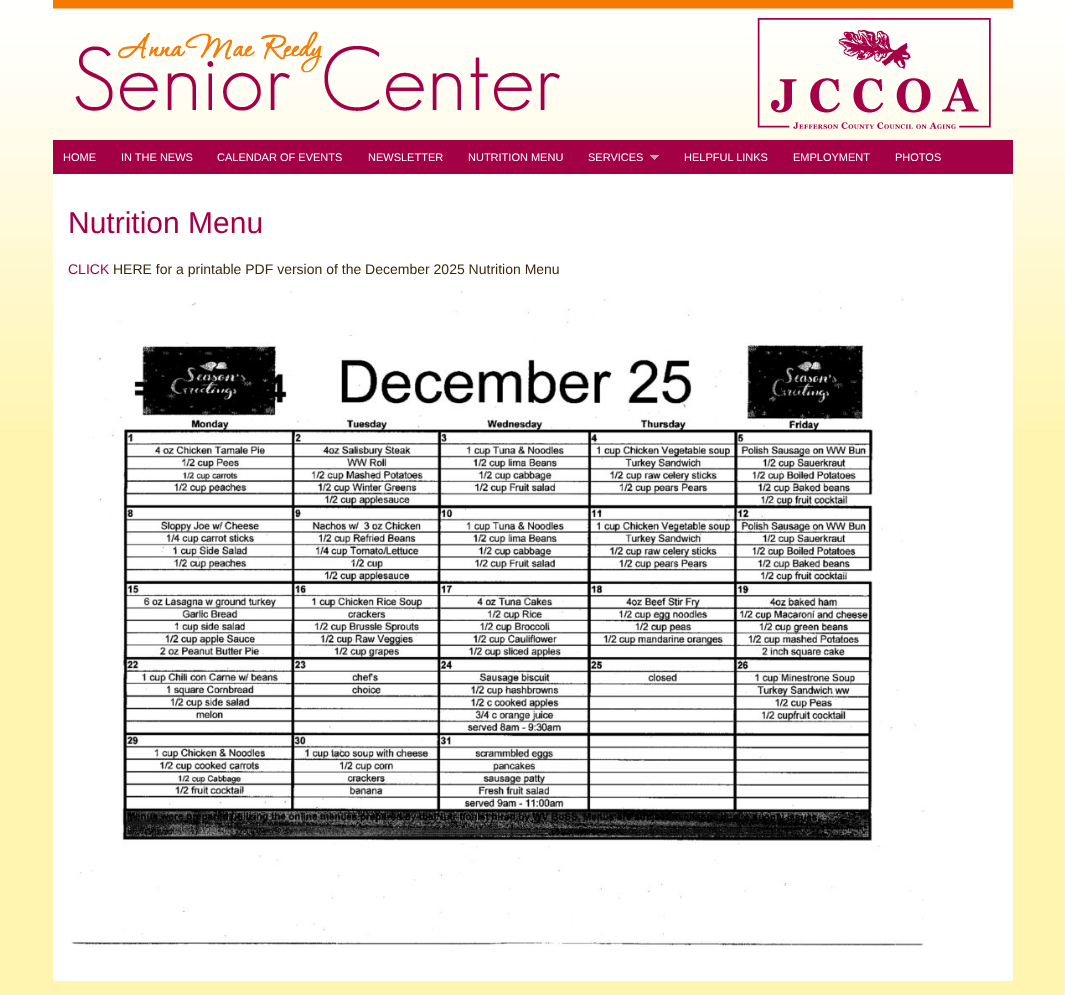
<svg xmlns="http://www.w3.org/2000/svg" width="1065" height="995">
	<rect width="100%" height="100%" fill="#FFF4B0" />
	<image x="0" y="0" width="1065" height="426" href="assets/img1.png" />
	<image x="53" y="0" width="960" height="129" href="assets/img2.png" />
	<rect x="53" y="140" width="960" height="34" fill="#A30046" />
	<g font-family="Liberation Sans" font-size="11" fill="#FFFFFF">
		<text x="63" y="161">HOME</text>
		<text x="121" y="161">IN THE NEWS</text>
		<text x="217" y="161">CALENDAR OF EVENTS</text>
		<text x="368" y="161">NEWSLETTER</text>
		<text x="468" y="161">NUTRITION MENU</text>
		<text x="588" y="161">SERVICES</text>
	</g>
	<image x="650" y="155" width="9" height="5" href="assets/img3.png" />
	<g font-family="Liberation Sans" font-size="11" fill="#FFFFFF">
		<text x="684" y="161">HELPFUL LINKS</text>
		<text x="793" y="161">EMPLOYMENT</text>
		<text x="895" y="161">PHOTOS</text>
	</g>
	<rect x="53" y="174" width="960" height="807" rx="3" fill="#FFFFFF" />
	<text x="68" y="233" font-family="Liberation Sans" font-size="30" fill="#A30046">Nutrition Menu</text>
	<text x="68" y="274" font-family="Liberation Sans" font-size="14" fill="#A30046">CLICK</text>
	<text x="113" y="274" font-family="Liberation Sans" font-size="14" fill="#382A0B">HERE for a printable PDF version of the December 2025 Nutrition Menu</text>
	<image x="71" y="289" width="855" height="663" href="assets/img4.png" />
</svg>
